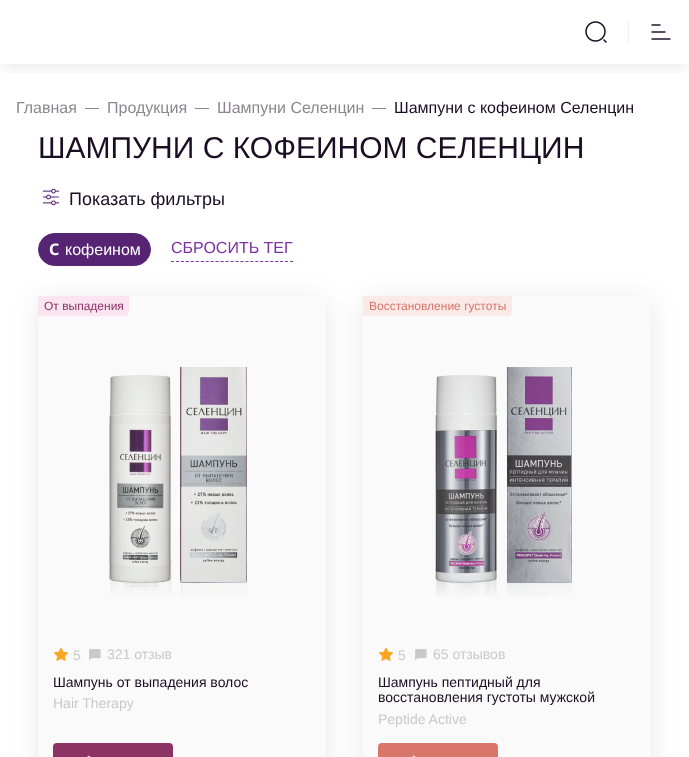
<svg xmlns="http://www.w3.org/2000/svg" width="689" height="757">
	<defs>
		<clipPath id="clip1"><rect x="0" y="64" width="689" height="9" /></clipPath>
	</defs>
	<rect width="100%" height="100%" fill="#FFFFFF" />
	<g clip-path="url(#clip1)">
		<rect x="0" y="4" width="689" height="64" fill="#000000" fill-opacity="0.08" filter="blur(8px)" />
	</g>
	<image x="585" y="21" width="22" height="22" href="assets/img1.png" />
	<rect x="628" y="20" width="1" height="24" fill="#F1F1F1" />
	<image x="651" y="24" width="20" height="16" href="assets/img2.png" />
	<text x="16" y="113" font-family="Liberation Sans" font-size="16" fill="#8D8691">Главная</text>
	<rect x="85" y="108" width="14" height="1" fill="#8D8691" />
	<text x="107" y="113" font-family="Liberation Sans" font-size="16" fill="#8D8691">Продукция</text>
	<rect x="195" y="108" width="14" height="1" fill="#8D8691" />
	<text x="217" y="113" font-family="Liberation Sans" font-size="16" fill="#8D8691">Шампуни Селенцин</text>
	<rect x="372" y="108" width="14" height="1" fill="#8D8691" />
	<text x="394" y="113" font-family="Liberation Sans" font-size="16" fill="#1B0D23">Шампуни с кофеином Селенцин</text>
	<text x="38" y="158" font-family="Liberation Sans" font-size="30" fill="#1B0D23">ШАМПУНИ С КОФЕИНОМ СЕЛЕНЦИН</text>
	<image x="42" y="188" width="18" height="18" href="assets/img3.png" />
	<text x="69" y="205" font-family="Liberation Sans" font-size="18" fill="#1B0D23">Показать фильтры</text>
	<rect x="38.5" y="233.5" width="112" height="32" rx="16" fill="#572473" stroke="#572473" />
	<text x="49" y="255" font-family="Noto Sans" font-size="16" font-weight="700" fill="#FFFFFF">С</text>
	<text x="65" y="255" font-family="Liberation Sans" font-size="16" fill="#FFFFFF">кофеином</text>
	<path d="M171 261.5H293" fill="none" stroke="#7B32A3" stroke-dasharray="3 1.96" />
	<text x="171" y="253" font-family="Liberation Sans" font-size="16" fill="#7B32A3">СБРОСИТЬ ТЕГ</text>
	<rect x="38" y="300" width="288" height="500" rx="4" fill="#1C1C1C" fill-opacity="0.1" filter="blur(13px)" />
	<rect x="38" y="296" width="288" height="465" rx="4" fill="#FAFAFA" />
	<path d="M38 296H129V312C129 314 127 316 125 316H38Z" fill="#FBE5F1" />
	<text x="44" y="310" font-family="Liberation Sans" font-size="12" fill="#8C3264">От выпадения</text>
	<image x="109" y="367" width="138" height="229" href="assets/img4.png" />
	<image x="53" y="647" width="16" height="14" href="assets/img5.png" />
	<text x="73" y="660" font-family="Liberation Sans" font-size="14" fill="#C9C9C9">5</text>
	<image x="89" y="649" width="12" height="12" href="assets/img6.png" />
	<text x="107" y="659" font-family="Liberation Sans" font-size="14" fill="#C9C9C9">321 отзыв</text>
	<text x="53" y="687" font-family="Liberation Sans" font-size="14" fill="#1B0D23">Шампунь от выпадения волос</text>
	<text x="53" y="708" font-family="Liberation Sans" font-size="14" fill="#C9C9C9">Hair Therapy</text>
	<rect x="53" y="743" width="120" height="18" rx="4" fill="#8C3264" />
	<image x="87" y="755" width="4" height="2" href="assets/img7.png" />
	<rect x="363" y="300" width="288" height="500" rx="4" fill="#1C1C1C" fill-opacity="0.1" filter="blur(13px)" />
	<rect x="363" y="296" width="288" height="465" rx="4" fill="#FAFAFA" />
	<path d="M363 296H512V312C512 314 510 316 508 316H363Z" fill="#F9EAE8" />
	<text x="369" y="310" font-family="Liberation Sans" font-size="12" fill="#D87669">Восстановление густоты</text>
	<image x="435" y="367" width="137" height="230" href="assets/img8.png" />
	<image x="378" y="647" width="16" height="14" href="assets/img5.png" />
	<text x="398" y="660" font-family="Liberation Sans" font-size="14" fill="#C9C9C9">5</text>
	<image x="415" y="649" width="12" height="12" href="assets/img6.png" />
	<text x="433" y="659" font-family="Liberation Sans" font-size="14" fill="#C9C9C9">65 отзывов</text>
	<g font-family="Liberation Sans" font-size="14" fill="#1B0D23">
		<text x="378" y="687">Шампунь пептидный для</text>
		<text x="378" y="702">восстановления густоты мужской</text>
	</g>
	<text x="378" y="724" font-family="Liberation Sans" font-size="14" fill="#C9C9C9">Peptide Active</text>
	<rect x="378" y="743" width="120" height="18" rx="4" fill="#D87669" />
	<image x="412" y="755" width="4" height="2" href="assets/img9.png" />
</svg>
